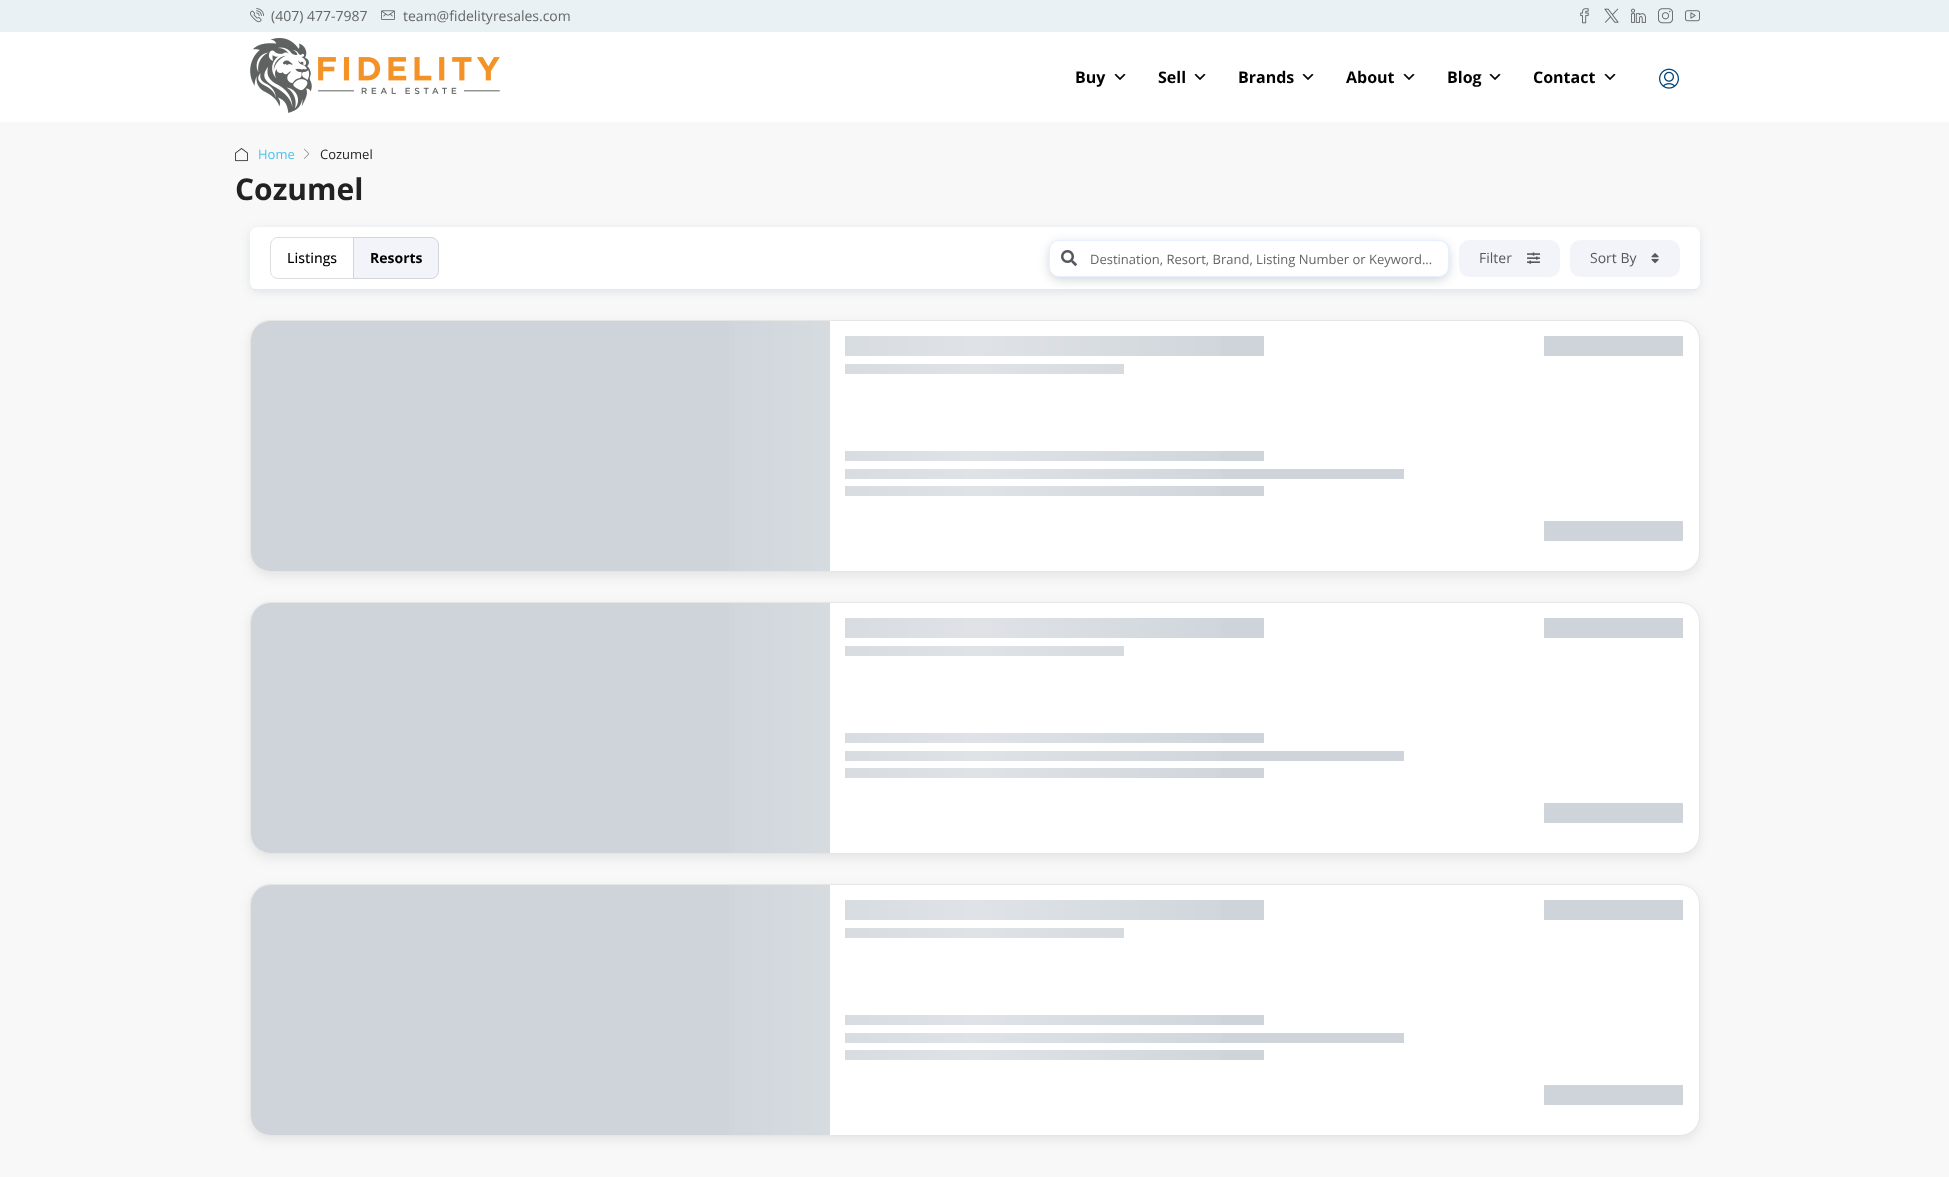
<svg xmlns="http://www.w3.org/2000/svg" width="1949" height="1177">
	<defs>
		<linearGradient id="g1" gradientUnits="userSpaceOnUse" x1="-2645" y1="446" x2="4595" y2="446"><stop offset="0.46" stop-color="#FFFFFF" stop-opacity="0" /><stop offset="0.5" stop-color="#FFFFFF" stop-opacity="0.35" /><stop offset="0.54" stop-color="#FFFFFF" stop-opacity="0" /></linearGradient>
		<linearGradient id="g2" gradientUnits="userSpaceOnUse" x1="-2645" y1="728" x2="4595" y2="728"><stop offset="0.46" stop-color="#FFFFFF" stop-opacity="0" /><stop offset="0.5" stop-color="#FFFFFF" stop-opacity="0.35" /><stop offset="0.54" stop-color="#FFFFFF" stop-opacity="0" /></linearGradient>
		<linearGradient id="g3" gradientUnits="userSpaceOnUse" x1="-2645" y1="1010" x2="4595" y2="1010"><stop offset="0.46" stop-color="#FFFFFF" stop-opacity="0" /><stop offset="0.5" stop-color="#FFFFFF" stop-opacity="0.35" /><stop offset="0.54" stop-color="#FFFFFF" stop-opacity="0" /></linearGradient>
	</defs>
	<rect width="100%" height="100%" fill="#F8F8F8" />
	<rect x="0" y="0" width="1949" height="32" fill="#E9F1F5" />
	<image x="250" y="8" width="14" height="15" href="assets/img1.png" />
	<text x="271" y="21" font-family="Open Sans" font-size="14" fill="#666666">(407) 477-7987</text>
	<image x="381" y="10" width="14" height="10" href="assets/img2.png" />
	<text x="403" y="21" font-family="Open Sans" font-size="14" fill="#666666">team@fidelityresales.com</text>
	<image x="1580" y="8" width="9" height="16" href="assets/img3.png" />
	<image x="1604" y="8" width="15" height="15" href="assets/img4.png" />
	<image x="1631" y="8" width="15" height="15" href="assets/img5.png" />
	<image x="1658" y="8" width="15" height="16" href="assets/img6.png" />
	<image x="1685" y="10" width="15" height="12" href="assets/img7.png" />
	<rect x="0" y="32" width="1949" height="90" fill="#FFFFFF" />
	<image x="250" y="38" width="250" height="75" href="assets/img8.png" />
	<text x="1075" y="83" font-family="Open Sans" font-size="16" font-weight="700" fill="#000000">Buy</text>
	<image x="1114" y="73" width="12" height="7" href="assets/img9.png" />
	<text x="1158" y="83" font-family="Open Sans" font-size="16" font-weight="700" fill="#000000">Sell</text>
	<image x="1194" y="73" width="12" height="7" href="assets/img9.png" />
	<text x="1238" y="83" font-family="Open Sans" font-size="16" font-weight="700" fill="#000000">Brands</text>
	<image x="1302" y="73" width="12" height="7" href="assets/img9.png" />
	<text x="1346" y="83" font-family="Open Sans" font-size="16" font-weight="700" fill="#000000">About</text>
	<image x="1403" y="73" width="12" height="7" href="assets/img9.png" />
	<text x="1447" y="83" font-family="Open Sans" font-size="16" font-weight="700" fill="#000000">Blog</text>
	<image x="1489" y="73" width="12" height="7" href="assets/img9.png" />
	<text x="1533" y="83" font-family="Open Sans" font-size="16" font-weight="700" fill="#000000">Contact</text>
	<image x="1604" y="73" width="12" height="7" href="assets/img9.png" />
	<image x="1659" y="68" width="20" height="21" href="assets/img10.png" />
	<image x="235" y="148" width="13" height="14" href="assets/img11.png" />
	<text x="258" y="159" font-family="Open Sans" font-size="13" fill="#4FC1E9">Home</text>
	<image x="304" y="148" width="6" height="11" href="assets/img12.png" />
	<text x="320" y="159" font-family="Open Sans" font-size="13" fill="#222222">Cozumel</text>
	<text x="235" y="200" font-family="Open Sans" font-size="30" font-weight="700" fill="#222222">Cozumel</text>
	<rect x="250" y="229" width="1450" height="63" rx="8" fill="#003466" fill-opacity="0.1" filter="blur(5px)" />
	<rect x="250" y="227" width="1450" height="63" rx="8" fill="#FFFFFF" />
	<rect x="254" y="289" width="1442" height="1" fill="#003466" fill-opacity="0.1" />
	<path d="M278 237.5H353.5V278.5H278C274 278.5 270.5 275 270.5 271V245C270.5 241 274 237.5 278 237.5Z" fill="none" stroke="#DDDEDF" />
	<text x="287" y="263" font-family="Open Sans" font-size="14" font-weight="500" fill="#000000">Listings</text>
	<path d="M353 237H431C435.5 237 439 240.5 439 245V271C439 275.5 435.5 279 431 279H353Z" fill="#F3F4F9" />
	<path d="M353.5 237.5H431C435 237.5 438.5 241 438.5 245V271C438.5 275 435 278.5 431 278.5H353.5Z" fill="none" stroke="#54595F" stroke-opacity="0.2" />
	<text x="370" y="263" font-family="Open Sans" font-size="14" font-weight="700" fill="#000000">Resorts</text>
	<rect x="1049" y="244" width="400" height="37" rx="12" fill="#000000" fill-opacity="0.08" filter="blur(6px)" />
	<rect x="1049" y="242" width="400" height="37" rx="10" fill="#003466" fill-opacity="0.1" filter="blur(5px)" />
	<rect x="1049.5" y="240.5" width="399" height="36" rx="9.5" fill="#FFFFFF" stroke="#E7F0FF" />
	<image x="1061" y="250" width="16" height="16" href="assets/img13.png" />
	<text x="1090" y="264" font-family="Open Sans" font-size="13" fill="#666666">Destination, Resort, Brand, Listing Number or Keyword...</text>
	<rect x="1459" y="240" width="101" height="37" rx="10" fill="#F3F4F9" />
	<text x="1479" y="263" font-family="Open Sans" font-size="14" fill="#54595F">Filter</text>
	<image x="1527" y="252" width="13" height="12" href="assets/img14.png" />
	<rect x="1570" y="240" width="110" height="37" rx="10" fill="#F3F4F9" />
	<text x="1590" y="263" font-family="Open Sans" font-size="14" fill="#54595F">Sort By</text>
	<image x="1651" y="253" width="8" height="11" href="assets/img15.png" />
	<rect x="250" y="324" width="1450" height="252" rx="20" fill="#000000" fill-opacity="0.08" filter="blur(6px)" />
	<rect x="250.5" y="320.5" width="1449" height="251" rx="19.5" fill="#FFFFFF" stroke="#E6E6E6" />
	<path d="M270 321H830V571H270C259.5 571 251 562.5 251 552V340C251 329.5 259.5 321 270 321Z" fill="#CED4DA" />
	<rect x="845" y="336" width="419" height="20" fill="#CED4DA" />
	<rect x="845" y="364" width="279" height="10" fill="#CED4DA" />
	<rect x="845" y="451" width="419" height="10" fill="#CED4DA" />
	<rect x="845" y="469" width="559" height="10" fill="#CED4DA" />
	<rect x="845" y="486" width="419" height="10" fill="#CED4DA" />
	<rect x="729" y="321" width="492" height="250" fill="url(#g1)" />
	<rect x="1544" y="336" width="139" height="20" fill="#CED4DA" />
	<rect x="1544" y="521" width="139" height="20" fill="#CED4DA" />
	<rect x="250" y="606" width="1450" height="252" rx="20" fill="#000000" fill-opacity="0.08" filter="blur(6px)" />
	<rect x="250.5" y="602.5" width="1449" height="251" rx="19.5" fill="#FFFFFF" stroke="#E6E6E6" />
	<path d="M270 603H830V853H270C259.5 853 251 844.5 251 834V622C251 611.5 259.5 603 270 603Z" fill="#CED4DA" />
	<rect x="845" y="618" width="419" height="20" fill="#CED4DA" />
	<rect x="845" y="646" width="279" height="10" fill="#CED4DA" />
	<rect x="845" y="733" width="419" height="10" fill="#CED4DA" />
	<rect x="845" y="751" width="559" height="10" fill="#CED4DA" />
	<rect x="845" y="768" width="419" height="10" fill="#CED4DA" />
	<rect x="729" y="603" width="492" height="250" fill="url(#g2)" />
	<rect x="1544" y="618" width="139" height="20" fill="#CED4DA" />
	<rect x="1544" y="803" width="139" height="20" fill="#CED4DA" />
	<rect x="250" y="888" width="1450" height="252" rx="20" fill="#000000" fill-opacity="0.08" filter="blur(6px)" />
	<rect x="250.5" y="884.5" width="1449" height="251" rx="19.5" fill="#FFFFFF" stroke="#E6E6E6" />
	<path d="M270 885H830V1135H270C259.5 1135 251 1126.5 251 1116V904C251 893.5 259.5 885 270 885Z" fill="#CED4DA" />
	<rect x="845" y="900" width="419" height="20" fill="#CED4DA" />
	<rect x="845" y="928" width="279" height="10" fill="#CED4DA" />
	<rect x="845" y="1015" width="419" height="10" fill="#CED4DA" />
	<rect x="845" y="1033" width="559" height="10" fill="#CED4DA" />
	<rect x="845" y="1050" width="419" height="10" fill="#CED4DA" />
	<rect x="729" y="885" width="492" height="250" fill="url(#g3)" />
	<rect x="1544" y="900" width="139" height="20" fill="#CED4DA" />
	<rect x="1544" y="1085" width="139" height="20" fill="#CED4DA" />
</svg>
